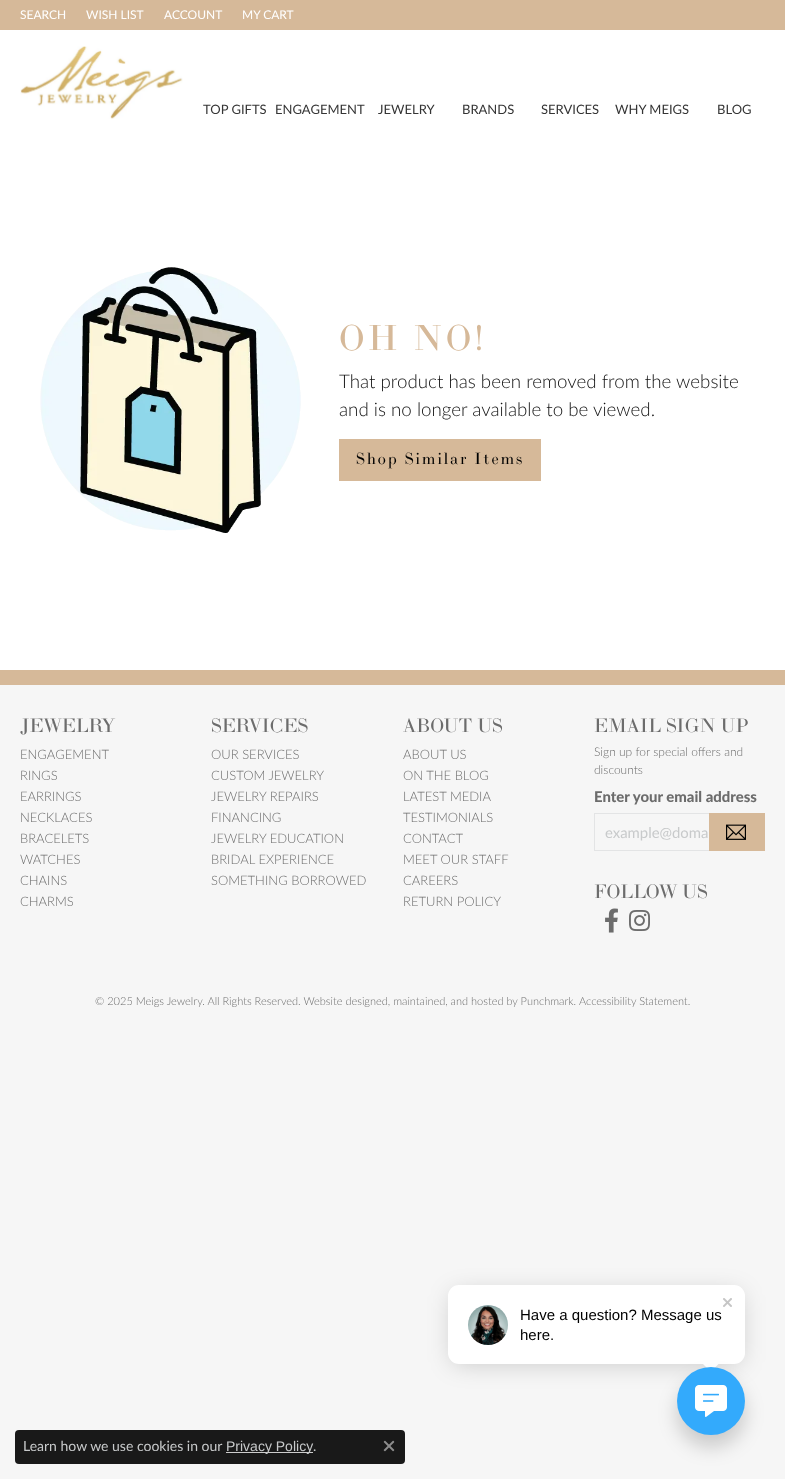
<svg xmlns="http://www.w3.org/2000/svg" width="785" height="1479">
	<rect width="100%" height="100%" fill="#F6F6F6" />
	<rect x="0" y="0" width="785" height="30" fill="#D6B999" />
	<g font-family="Lato" font-size="12" fill="#FFFFFF">
		<text x="20" y="19">SEARCH</text>
		<text x="86" y="19">WISH LIST</text>
		<text x="164" y="19">ACCOUNT</text>
		<text x="242" y="19">MY CART</text>
	</g>
	<rect x="0" y="30" width="785" height="640" fill="#FFFFFF" />
	<image x="20" y="46" width="163" height="74" href="assets/img1.png" />
	<g font-family="Lato" font-size="13" fill="#353535">
		<text x="203" y="114">TOP GIFTS</text>
		<text x="275" y="114">ENGAGEMENT</text>
		<text x="378" y="114">JEWELRY</text>
		<text x="462" y="114">BRANDS</text>
		<text x="541" y="114">SERVICES</text>
		<text x="615" y="114">WHY MEIGS</text>
		<text x="717" y="114">BLOG</text>
	</g>
	<image x="40" y="267" width="261" height="266" href="assets/img2.png" />
	<text x="339" y="350" font-family="'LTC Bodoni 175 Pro'" font-size="35.5" letter-spacing="3.25" fill="#D6B999">OH NO!</text>
	<g font-family="Lato" font-size="18.75" font-weight="300" fill="#111111">
		<text x="339" y="388">That product has been removed from the website</text>
		<text x="339" y="416">and is no longer available to be viewed.</text>
	</g>
	<rect x="339" y="439" width="202" height="42" fill="#D6B999" />
	<text x="356" y="464" font-family="'LTC Bodoni 175 Pro'" font-size="16" letter-spacing="2" fill="#000000">Shop Similar Items</text>
	<rect x="0" y="670" width="785" height="15" fill="#D6B999" />
	<text x="20" y="732" font-family="'LTC Bodoni 175 Pro'" font-size="19.25" fill="#6C6C6C">JEWELRY</text>
	<g font-family="Lato" font-size="13" font-weight="300" fill="#6C6C6C">
		<text x="20" y="759">ENGAGEMENT</text>
		<text x="20" y="780">RINGS</text>
		<text x="20" y="801">EARRINGS</text>
		<text x="20" y="822">NECKLACES</text>
		<text x="20" y="843">BRACELETS</text>
		<text x="20" y="864">WATCHES</text>
		<text x="20" y="885">CHAINS</text>
		<text x="20" y="906">CHARMS</text>
	</g>
	<text x="211" y="732" font-family="'LTC Bodoni 175 Pro'" font-size="19.25" fill="#6C6C6C">SERVICES</text>
	<g font-family="Lato" font-size="13" font-weight="300" fill="#6C6C6C">
		<text x="211" y="759">OUR SERVICES</text>
		<text x="211" y="780">CUSTOM JEWELRY</text>
		<text x="211" y="801">JEWELRY REPAIRS</text>
		<text x="211" y="822">FINANCING</text>
		<text x="211" y="843">JEWELRY EDUCATION</text>
		<text x="211" y="864">BRIDAL EXPERIENCE</text>
		<text x="211" y="885">SOMETHING BORROWED</text>
	</g>
	<text x="403" y="732" font-family="'LTC Bodoni 175 Pro'" font-size="19.25" fill="#6C6C6C">ABOUT US</text>
	<g font-family="Lato" font-size="13" font-weight="300" fill="#6C6C6C">
		<text x="403" y="759">ABOUT US</text>
		<text x="403" y="780">ON THE BLOG</text>
		<text x="403" y="801">LATEST MEDIA</text>
		<text x="403" y="822">TESTIMONIALS</text>
		<text x="403" y="843">CONTACT</text>
		<text x="403" y="864">MEET OUR STAFF</text>
		<text x="403" y="885">CAREERS</text>
		<text x="403" y="906">RETURN POLICY</text>
	</g>
	<text x="594" y="732" font-family="'LTC Bodoni 175 Pro'" font-size="19.25" fill="#6C6C6C">EMAIL SIGN UP</text>
	<g font-family="Lato" font-size="12" font-weight="300" fill="#6C6C6C">
		<text x="594" y="756">Sign up for special offers and</text>
		<text x="594" y="774">discounts</text>
	</g>
	<text x="594" y="802" font-family="Lato" font-size="14.9" font-weight="900" fill="#6C6C6C">Enter your email address</text>
	<rect x="594.5" y="813.5" width="115" height="37" fill="none" stroke="#E3E4E5" />
	<text x="605" y="838" font-family="Lato" font-size="14.9" fill="#C8CACB">example@doma</text>
	<rect x="709" y="813" width="56" height="38" fill="#D6B999" />
	<image x="726" y="824" width="20" height="16" href="assets/img3.png" />
	<text x="594" y="898" font-family="'LTC Bodoni 175 Pro'" font-size="19.25" fill="#6C6C6C">FOLLOW US</text>
	<image x="605" y="908" width="13" height="25" href="assets/img4.png" />
	<image x="629" y="910" width="21" height="21" href="assets/img5.png" />
	<g font-family="Lato" font-size="11" font-weight="300" fill="#6C6C6C">
		<text x="95" y="1005">© 2025 Meigs Jewelry. All Rights Reserved. Website designed, maintained, and hosted by Punchmark.</text>
		<text x="579" y="1005">Accessibility Statement.</text>
	</g>
	<rect x="452" y="1293" width="289" height="71" rx="7" fill="#000000" fill-opacity="0.18" filter="blur(12px)" />
	<rect x="448" y="1285" width="297" height="79" rx="11" fill="#FFFFFF" />
	<image x="723" y="1298" width="9" height="9" href="assets/img6.png" />
	<image x="468" y="1305" width="40" height="40" href="assets/img7.png" />
	<g font-family="Liberation Sans" font-size="15" fill="#000000">
		<text x="520" y="1320">Have a question? Message us</text>
		<text x="520" y="1340">here.</text>
	</g>
	<path d="M700 1361L708 1369C710.5 1371.5 711 1371.5 713.5 1369L721.5 1361Z" fill="#FFFFFF" fill-rule="evenodd" />
	<rect x="15" y="1430" width="390" height="34" rx="4" fill="#191919" />
	<text x="23" y="1451" font-family="Lato" font-size="14" fill="#C8CACB">Learn how we use cookies in our</text>
	<rect x="226" y="1452" width="87" height="1" fill="#CCCCCC" />
	<text x="226" y="1451" font-family="Liberation Sans" font-size="14" fill="#C8CACB">Privacy Policy</text>
	<text x="313" y="1451" font-family="Lato" font-size="14" fill="#C8CACB">.</text>
	<image x="383" y="1440" width="12" height="12" href="assets/img8.png" />
	<rect x="677" y="1379" width="68" height="68" rx="34" fill="#000000" fill-opacity="0.18" filter="blur(9.5px)" />
	<circle cx="711" cy="1401" r="34" fill="#33AAFC" />
	<image x="695" y="1385" width="32" height="32" href="assets/img9.png" />
</svg>
